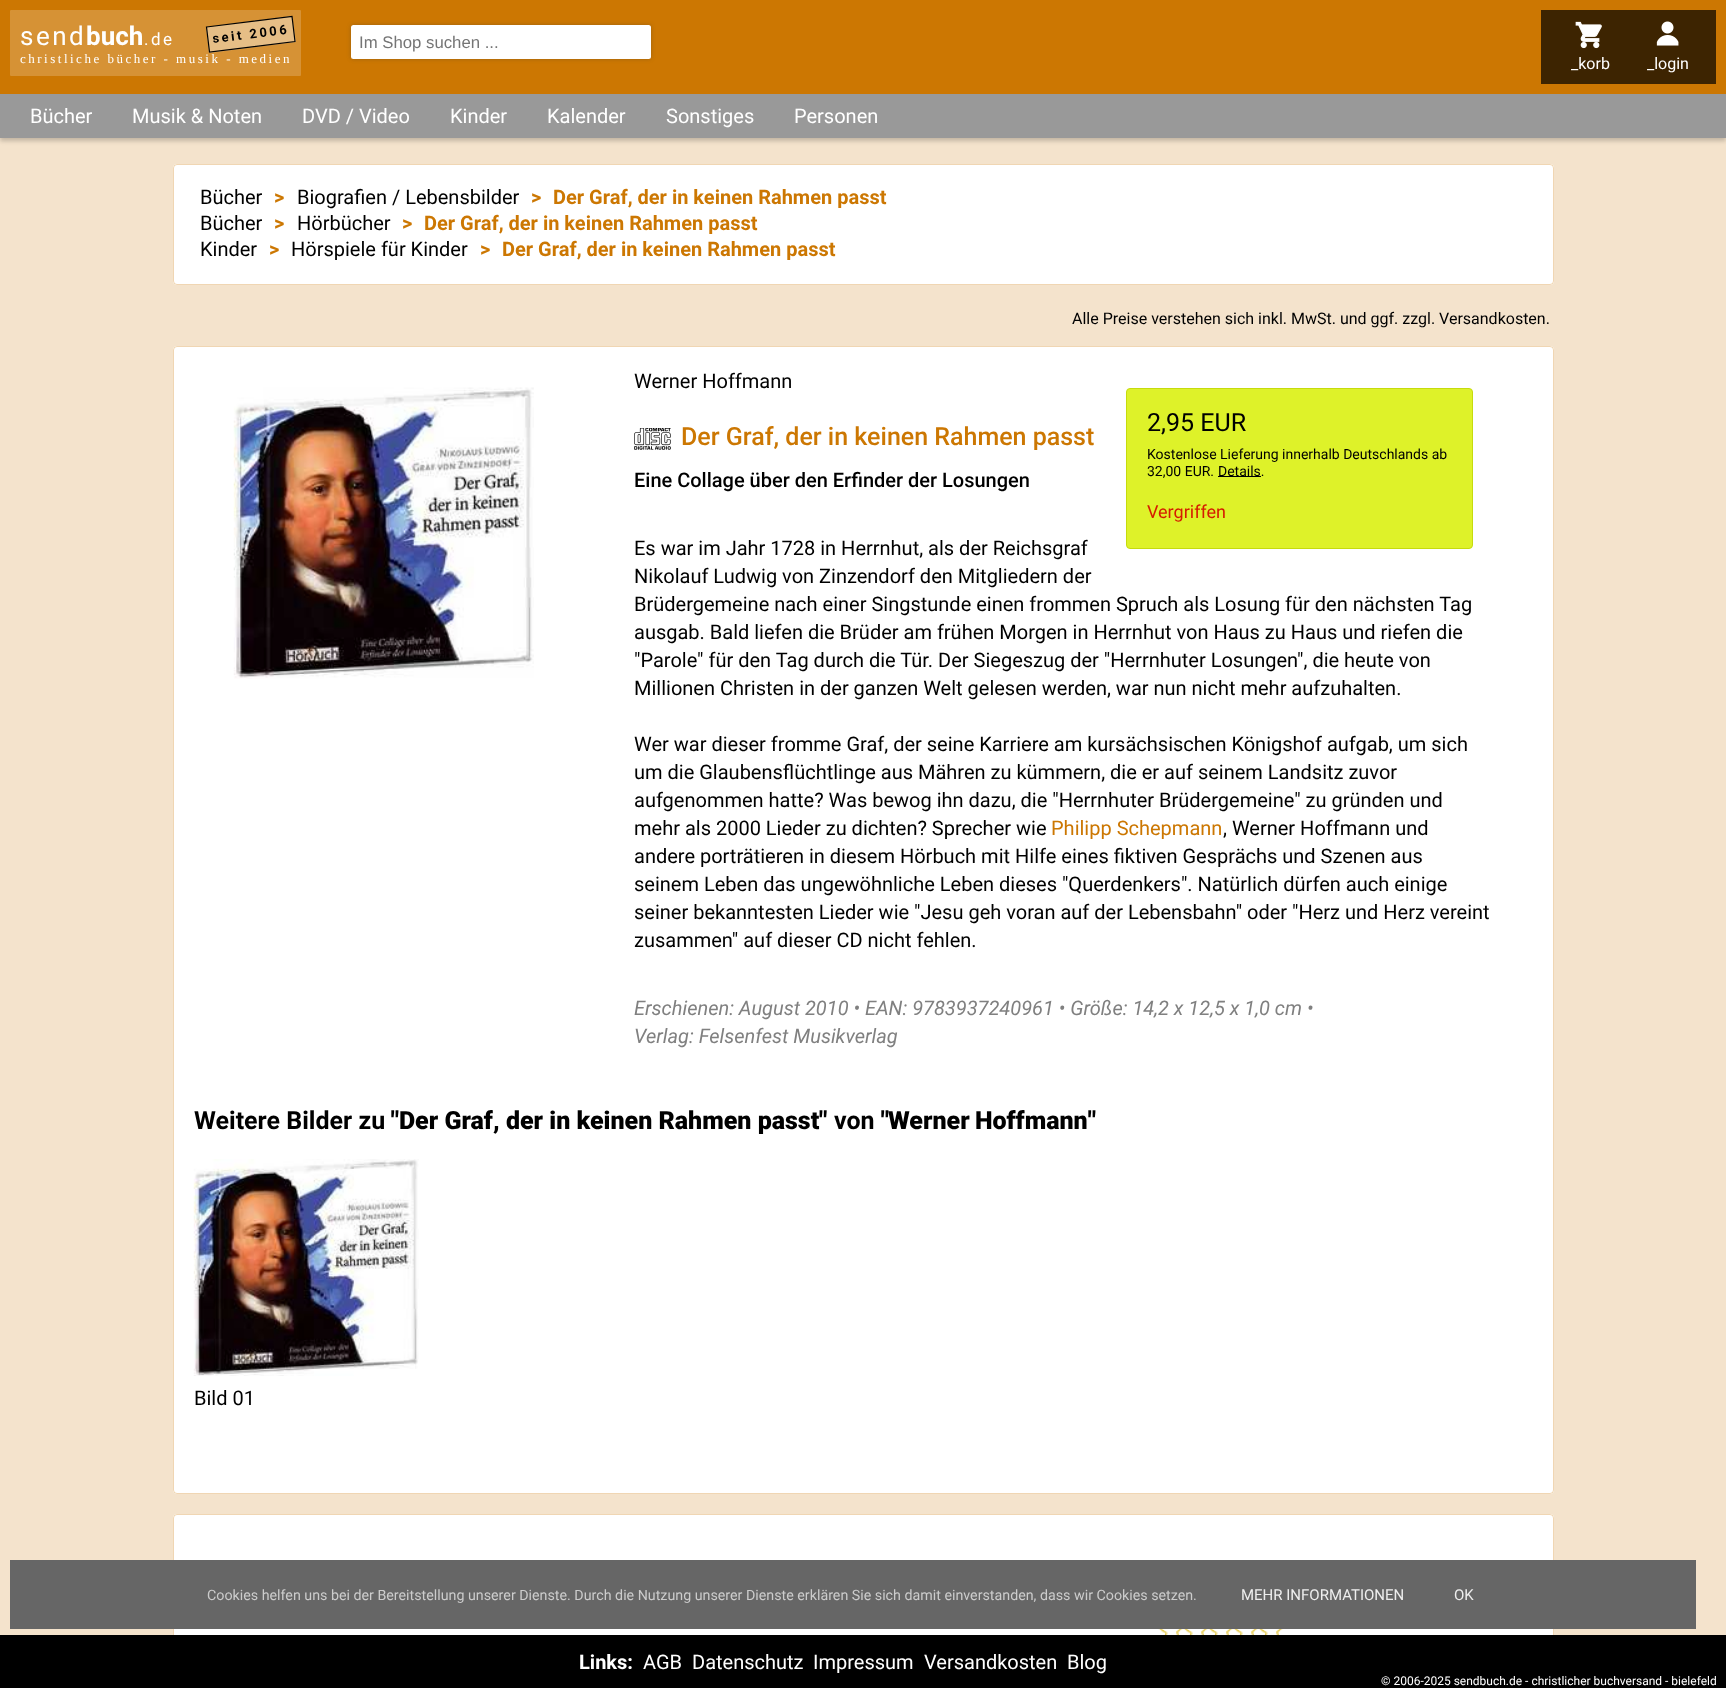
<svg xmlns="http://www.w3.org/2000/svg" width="1726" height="1688">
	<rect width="100%" height="100%" fill="#F4E3CC" />
	<rect x="0" y="98" width="1726" height="43" fill="#000000" fill-opacity="0.2" filter="blur(2px)" />
	<rect x="0" y="0" width="1726" height="94" fill="#CC7702" />
	<rect x="10" y="10" width="291" height="66" rx="1" fill="#D69235" />
	<text x="20" y="45" font-family="Roboto" font-size="26" letter-spacing="2.5" fill="#FFFFFF">send</text>
	<text x="86" y="45" font-family="Roboto" font-size="26" font-weight="700" fill="#FFFFFF">buch</text>
	<text x="144" y="45" font-family="Roboto" font-size="17" letter-spacing="2.5" fill="#FFFFFF">.de</text>
	<path d="M206 27L292 16L296 42L209 53Z" fill="#E6BE86" />
	<path d="M206.5 27L292 16.5L295 41.5L209.5 52Z" fill="none" stroke="#000000" stroke-width="1.2" />
	<text x="213" y="43" transform="rotate(-7 213 43)" font-family="Roboto" font-size="13" font-weight="700" letter-spacing="2.5" fill="#000000">seit 2006</text>
	<text x="20" y="63" font-family="Liberation Serif" font-size="13" letter-spacing="2.5" fill="#FFFFFF">christliche bücher - musik - medien</text>
	<rect x="351" y="25" width="300" height="34" rx="2.5" fill="#333333" fill-opacity="0.3" filter="blur(2px)" />
	<rect x="351" y="25" width="300" height="34" rx="2.5" fill="#FFFFFF" />
	<text x="359" y="48" font-family="Liberation Sans" font-size="16.75" fill="#757575">Im Shop suchen ...</text>
	<rect x="1541" y="10" width="175" height="74" fill="#3D2401" />
	<image x="1575" y="21" width="27" height="28" href="assets/img1.png" />
	<text x="1571" y="69" font-family="Roboto" font-size="16" fill="#FFFFFF">_korb</text>
	<image x="1656" y="21" width="23" height="25" href="assets/img2.png" />
	<text x="1647" y="69" font-family="Roboto" font-size="16" fill="#FFFFFF">_login</text>
	<rect x="0" y="94" width="1726" height="44" fill="#999999" />
	<g font-family="Roboto" font-size="20" fill="#FFFFFF">
		<text x="30" y="123">Bücher</text>
		<text x="132" y="123">Musik &amp; Noten</text>
		<text x="302" y="123">DVD / Video</text>
		<text x="450" y="123">Kinder</text>
		<text x="547" y="123">Kalender</text>
		<text x="666" y="123">Sonstiges</text>
		<text x="794" y="123">Personen</text>
	</g>
	<rect x="173" y="164" width="1381" height="121" rx="4" fill="#FFFFFF" />
	<rect x="173.5" y="164.5" width="1380" height="120" rx="3.5" fill="none" stroke="#CC7702" stroke-opacity="0.3" />
	<text x="200" y="204" font-family="Roboto" font-size="20" fill="#000000">Bücher</text>
	<text x="274" y="204" font-family="Roboto" font-size="20" font-weight="700" fill="#CC7702">&gt;</text>
	<text x="297" y="204" font-family="Roboto" font-size="20" fill="#000000">Biografien / Lebensbilder</text>
	<g font-family="Roboto" font-size="20" font-weight="700" fill="#CC7702">
		<text x="531" y="204">&gt;</text>
		<text x="553" y="204">Der Graf, der in keinen Rahmen passt</text>
	</g>
	<text x="200" y="230" font-family="Roboto" font-size="20" fill="#000000">Bücher</text>
	<text x="274" y="230" font-family="Roboto" font-size="20" font-weight="700" fill="#CC7702">&gt;</text>
	<text x="297" y="230" font-family="Roboto" font-size="20" fill="#000000">Hörbücher</text>
	<g font-family="Roboto" font-size="20" font-weight="700" fill="#CC7702">
		<text x="402" y="230">&gt;</text>
		<text x="424" y="230">Der Graf, der in keinen Rahmen passt</text>
	</g>
	<text x="200" y="256" font-family="Roboto" font-size="20" fill="#000000">Kinder</text>
	<text x="269" y="256" font-family="Roboto" font-size="20" font-weight="700" fill="#CC7702">&gt;</text>
	<text x="291" y="256" font-family="Roboto" font-size="20" fill="#000000">Hörspiele für Kinder</text>
	<g font-family="Roboto" font-size="20" font-weight="700" fill="#CC7702">
		<text x="480" y="256">&gt;</text>
		<text x="502" y="256">Der Graf, der in keinen Rahmen passt</text>
	</g>
	<text x="1072" y="324" font-family="Roboto" font-size="16" fill="#000000">Alle Preise verstehen sich inkl. MwSt. und ggf. zzgl. Versandkosten.</text>
	<rect x="173" y="346" width="1381" height="1148" rx="4" fill="#FFFFFF" />
	<rect x="173.5" y="346.5" width="1380" height="1147" rx="3.5" fill="none" stroke="#CC7702" stroke-opacity="0.3" />
	<image x="233" y="387" width="301" height="292" href="assets/img3.png" />
	<text x="634" y="388" font-family="Roboto" font-size="20" fill="#000000">Werner Hoffmann</text>
	<image x="634" y="428" width="37" height="22" href="assets/img4.png" />
	<text x="681" y="445" font-family="Roboto" font-size="25" font-weight="500" fill="#CC7702">Der Graf, der in keinen Rahmen passt</text>
	<rect x="1126.5" y="388.5" width="346" height="160" rx="3.5" fill="#DEF229" stroke="#C6DB0D" />
	<text x="1147" y="431" font-family="Roboto" font-size="25" fill="#000000">2,95 EUR</text>
	<g font-family="Roboto" font-size="14" fill="#000000">
		<text x="1147" y="459">Kostenlose Lieferung innerhalb Deutschlands ab</text>
		<text x="1147" y="476">32,00 EUR.</text>
	</g>
	<rect x="1218" y="476" width="43" height="1" fill="#000000" />
	<text x="1218" y="476" font-family="Roboto" font-size="14" fill="#000000">Details.</text>
	<text x="1147" y="518" font-family="Roboto" font-size="18" fill="#D61B00">Vergriffen</text>
	<text x="634" y="487" font-family="Roboto" font-size="20" font-weight="500" fill="#000000">Eine Collage über den Erfinder der Losungen</text>
	<g font-family="Roboto" font-size="20" fill="#000000">
		<text x="634" y="555">Es war im Jahr 1728 in Herrnhut, als der Reichsgraf</text>
		<text x="634" y="583">Nikolauf Ludwig von Zinzendorf den Mitgliedern der</text>
		<text x="634" y="611">Brüdergemeine nach einer Singstunde einen frommen Spruch als Losung für den nächsten Tag</text>
		<text x="634" y="639">ausgab. Bald liefen die Brüder am frühen Morgen in Herrnhut von Haus zu Haus und riefen die</text>
		<text x="634" y="667">"Parole" für den Tag durch die Tür. Der Siegeszug der "Herrnhuter Losungen", die heute von</text>
		<text x="634" y="695">Millionen Christen in der ganzen Welt gelesen werden, war nun nicht mehr aufzuhalten.</text>
		<text x="634" y="751">Wer war dieser fromme Graf, der seine Karriere am kursächsischen Königshof aufgab, um sich</text>
		<text x="634" y="779">um die Glaubensflüchtlinge aus Mähren zu kümmern, die er auf seinem Landsitz zuvor</text>
		<text x="634" y="807">aufgenommen hatte? Was bewog ihn dazu, die "Herrnhuter Brüdergemeine" zu gründen und</text>
		<text x="634" y="835">mehr als 2000 Lieder zu dichten? Sprecher wie</text>
	</g>
	<text x="1051" y="835" font-family="Roboto" font-size="20" fill="#CC7702">Philipp Schepmann</text>
	<g font-family="Roboto" font-size="20" fill="#000000">
		<text x="1223" y="835">, Werner Hoffmann und</text>
		<text x="634" y="863">andere porträtieren in diesem Hörbuch mit Hilfe eines fiktiven Gesprächs und Szenen aus</text>
		<text x="634" y="891">seinem Leben das ungewöhnliche Leben dieses "Querdenkers". Natürlich dürfen auch einige</text>
		<text x="634" y="919">seiner bekanntesten Lieder wie "Jesu geh voran auf der Lebensbahn" oder "Herz und Herz vereint</text>
		<text x="634" y="947">zusammen" auf dieser CD nicht fehlen.</text>
	</g>
	<g font-family="Roboto" font-size="20" font-style="italic" fill="#808080">
		<text x="634" y="1015">Erschienen: August 2010 • EAN: 9783937240961 • Größe: 14,2 x 12,5 x 1,0 cm •</text>
		<text x="634" y="1043">Verlag: Felsenfest Musikverlag</text>
	</g>
	<text x="194" y="1129" font-family="Roboto" font-size="25" font-weight="700" fill="#000000">Weitere Bilder zu</text>
	<g font-family="Roboto" font-size="25" font-weight="900" fill="#000000">
		<text x="391" y="1129">"Der Graf, der in keinen Rahmen passt"</text>
		<text x="881" y="1129">"</text>
		<text x="888" y="1129" word-spacing="-1">Werner Hoffmann</text>
		<text x="1088" y="1129">"</text>
	</g>
	<text x="834" y="1129" font-family="Roboto" font-size="25" font-weight="700" fill="#000000">von</text>
	<image x="193" y="1159" width="226" height="217" href="assets/img5.png" />
	<text x="194" y="1405" font-family="Roboto" font-size="20" fill="#000000">Bild 01</text>
	<rect x="173" y="1514" width="1381" height="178" rx="4" fill="#FFFFFF" />
	<rect x="173.5" y="1514.5" width="1380" height="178" rx="3.5" fill="none" stroke="#CC7702" stroke-opacity="0.3" />
	<image x="1158" y="1629" width="125" height="6" href="assets/img6.png" />
	<rect x="10" y="1560" width="1686" height="69" fill="#666666" />
	<text x="207" y="1600" font-family="Roboto" font-size="14.25" fill="#CCCCCC">Cookies helfen uns bei der Bereitstellung unserer Dienste. Durch die Nutzung unserer Dienste erklären Sie sich damit einverstanden, dass wir Cookies setzen.</text>
	<g font-family="Roboto" font-size="15" fill="#EEEEEE">
		<text x="1241" y="1600">MEHR INFORMATIONEN</text>
		<text x="1454" y="1600">OK</text>
	</g>
	<rect x="0" y="1635" width="1726" height="53" fill="#000000" />
	<text x="579" y="1669" font-family="Roboto" font-size="20" font-weight="700" fill="#FFFFFF">Links:</text>
	<g font-family="Roboto" font-size="20" fill="#FFFFFF">
		<text x="643" y="1669">AGB</text>
		<text x="692" y="1669">Datenschutz</text>
		<text x="813" y="1669">Impressum</text>
		<text x="924" y="1669">Versandkosten</text>
		<text x="1067" y="1669">Blog</text>
	</g>
	<text x="1381" y="1685" font-family="Roboto" font-size="12" fill="#FFFFFF">© 2006-2025 sendbuch.de - christlicher buchversand - bielefeld</text>
</svg>
